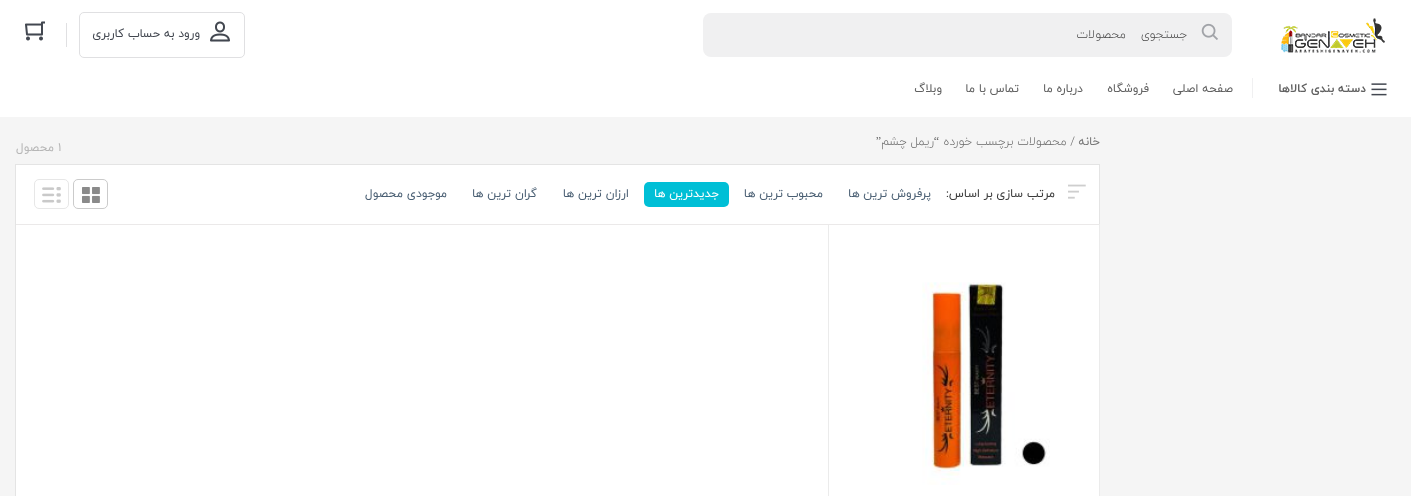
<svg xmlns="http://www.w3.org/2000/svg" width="1411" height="496">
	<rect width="100%" height="100%" fill="#F5F5F5" />
	<rect x="0" y="0" width="1411" height="117" fill="#FFFFFF" />
	<image x="1281" y="18" width="104" height="35" href="assets/img1.png" />
	<rect x="703" y="13" width="529" height="44" rx="8" fill="#F0F0F1" />
	<image x="1201" y="23" width="17" height="17" href="assets/img2.png" />
	<text x="1187" y="38" word-spacing="11" font-family="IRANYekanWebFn" font-size="12" font-weight="300" letter-spacing="-0.75" direction="rtl" fill="#474747">جستجوی محصولات</text>
	<rect x="79.5" y="12.5" width="165" height="45" rx="4.5" fill="none" stroke="#E0E0E2" />
	<image x="210" y="21" width="20" height="21" href="assets/img3.png" />
	<text x="200" y="37" font-family="IRANYekanWebFn" font-size="12" direction="rtl" fill="#424750">ورود به حساب کاربری</text>
	<rect x="66" y="23" width="1" height="24" fill="#E0E0E2" />
	<image x="25" y="21" width="20" height="20" href="assets/img4.png" />
	<image x="1371" y="83" width="16" height="13" href="assets/img5.png" />
	<text x="1366" y="92" font-family="IRANYekanWebFn" font-size="12" font-weight="700" direction="rtl" fill="#616161">دسته بندی کالاها</text>
	<rect x="1252" y="78" width="1" height="20" fill="#F0F0F1" />
	<g font-family="IRANYekanWebFn" font-size="12" direction="rtl" fill="#616161">
		<text x="1233" y="92">صفحه اصلی</text>
		<text x="1149" y="92">فروشگاه</text>
		<text x="1083" y="92">درباره ما</text>
		<text x="1019" y="92">تماس با ما</text>
		<text x="942" y="92">وبلاگ</text>
	</g>
	<text x="1100" y="145" font-family="IRANYekanWebFn" font-size="12" direction="rtl" fill="#767676">خانه</text>
	<text x="1075" y="145" font-family="IRANYekanWebFn" font-size="12" font-weight="300" direction="rtl" fill="#6A6A6A">/ محصولات برچسب خورده</text>
	<text x="939" y="145" font-family="Liberation Serif" font-size="12" direction="rtl" fill="#6A6A6A">“</text>
	<text x="934" y="145" font-family="IRANYekanWebFn" font-size="12" font-weight="300" direction="rtl" fill="#6A6A6A">ریمل چشم</text>
	<text x="881" y="145" font-family="Liberation Serif" font-size="12" direction="rtl" fill="#6A6A6A">”</text>
	<rect x="15.5" y="164.5" width="1084" height="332" fill="#FFFFFF" stroke="#E4E4E4" />
	<text x="58" y="151" font-family="IRANYekanWebFn" font-size="12" fill="#B7B7B7">1</text>
	<text x="54" y="151" font-family="IRANYekanWebFn" font-size="12" direction="rtl" fill="#B7B7B7">محصول</text>
	<rect x="828" y="224" width="1" height="272" fill="#EBEBEB" />
	<rect x="16" y="224" width="1083" height="1" fill="#EBE9E9" />
	<image x="1068" y="184" width="18" height="15" href="assets/img6.png" />
	<text x="1055" y="197" font-family="IRANYekanWebFn" font-size="12" direction="rtl" fill="#3B3B3B">مرتب سازی بر اساس:</text>
	<g font-family="IRANYekanWebFn" font-size="12" direction="rtl" fill="#4A5F73">
		<text x="931" y="197">پرفروش ترین ها</text>
		<text x="823" y="197">محبوب ترین ها</text>
	</g>
	<rect x="644" y="182" width="85" height="25" rx="5" fill="#00BFD6" />
	<text x="719" y="197" font-family="IRANYekanWebFn" font-size="12" direction="rtl" fill="#FFFFFF">جدیدترین ها</text>
	<g font-family="IRANYekanWebFn" font-size="12" direction="rtl" fill="#4A5F73">
		<text x="629" y="197">ارزان ترین ها</text>
		<text x="537" y="197">گران ترین ها</text>
		<text x="447" y="197">موجودی محصول</text>
	</g>
	<rect x="73.5" y="179.5" width="34" height="29" rx="4.5" fill="none" stroke="#CBCBCB" />
	<image x="82" y="187" width="18" height="16" href="assets/img7.png" />
	<rect x="34.5" y="179.5" width="34" height="29" rx="4.5" fill="none" stroke="#E7E7E7" />
	<image x="42" y="187" width="19" height="16" href="assets/img8.png" />
	<rect x="1099" y="224" width="1" height="272" fill="#EBEBEB" />
	<image x="922" y="282" width="128" height="203" href="assets/img9.png" />
</svg>
